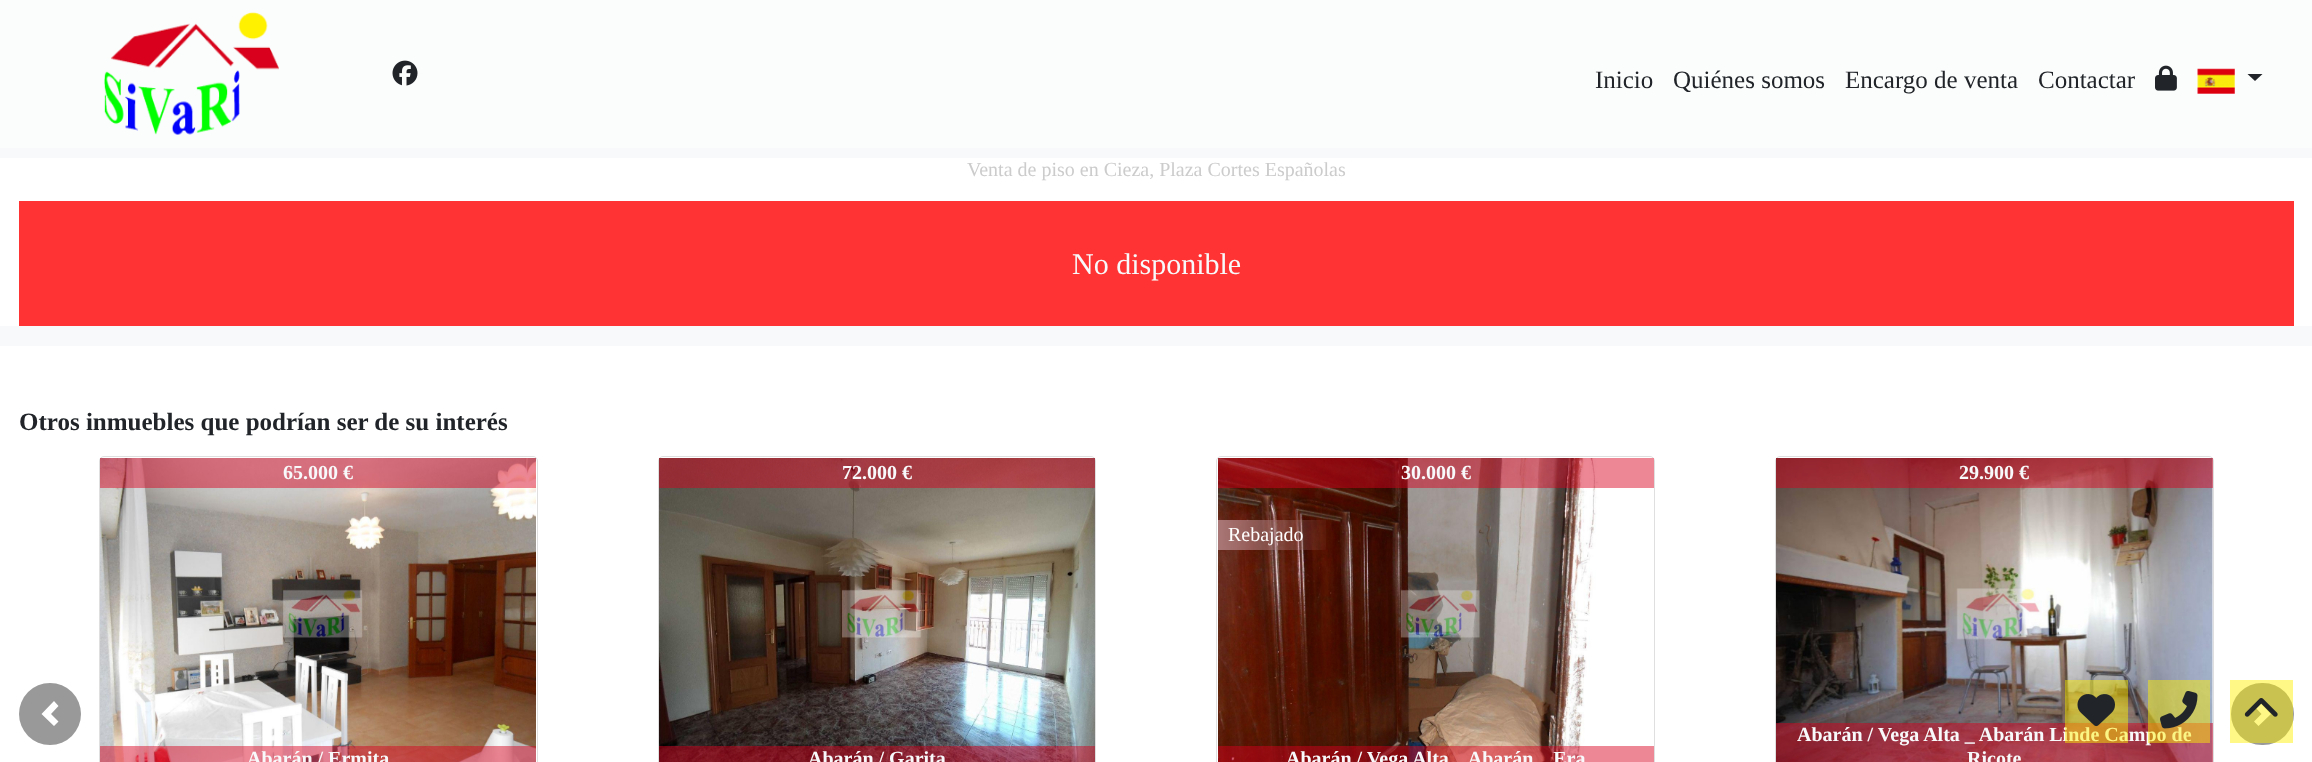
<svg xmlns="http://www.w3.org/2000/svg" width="2312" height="762">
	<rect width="100%" height="100%" fill="#FFFFFF" />
	<rect x="0" y="0" width="2312" height="148" fill="#FBFCFC" />
	<image x="104" y="12" width="175" height="123" href="assets/img1.png" />
	<image x="392" y="60" width="26" height="26" href="assets/img2.png" />
	<g font-family="Liberation Serif" font-size="25" fill="#212529">
		<text x="1595" y="88">Inicio</text>
		<text x="1673" y="88">Quiénes somos</text>
		<text x="1845" y="88">Encargo de venta</text>
		<text x="2038" y="88">Contactar</text>
	</g>
	<image x="2155" y="65" width="22" height="26" href="assets/img3.png" />
	<image x="2197" y="68" width="38" height="26" href="assets/img4.png" />
	<path d="M2247.5 74H2262.5L2255 81Z" fill="#212529" />
	<rect x="0" y="148" width="2312" height="198" fill="#F8F9FA" />
	<rect x="0" y="158" width="2312" height="168" fill="#FFFFFF" />
	<text x="967" y="176" font-family="Liberation Serif" font-size="20" fill="#CCCCCC">Venta de piso en Cieza, Plaza Cortes Españolas</text>
	<rect x="19" y="201" width="2275" height="125" fill="#FF3333" />
	<text x="1072" y="274" font-family="Liberation Serif" font-size="30" fill="#F8F9FA">No disponible</text>
	<text x="19" y="430" font-family="Liberation Serif" font-size="25" font-weight="700" fill="#212529">Otros inmuebles que podrían ser de su interés</text>
	<circle cx="50" cy="714" r="31" fill="#999999" />
	<path d="M54 701L41.5 714L54 726L58.5 721.5L51 714L58.5 706Z" fill="#FFFFFF" />
	<rect x="99.5" y="456.5" width="438" height="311" rx="4.5" fill="none" stroke="#DFDFDF" />
	<image x="100" y="458" width="436" height="304" href="assets/img5.png" />
	<rect x="100" y="458" width="436" height="30" fill="#D8001D" fill-opacity="0.47" />
	<text x="283" y="479" font-family="Liberation Serif" font-size="20" font-weight="700" fill="#F8F9FA">65.000 €</text>
	<rect x="100" y="746" width="436" height="16" fill="#D8001D" fill-opacity="0.47" />
	<text x="247" y="765" font-family="Liberation Serif" font-size="20" font-weight="700" fill="#F8F9FA">Abarán / Ermita</text>
	<rect x="658.5" y="456.5" width="437" height="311" rx="4.5" fill="none" stroke="#DFDFDF" />
	<image x="659" y="458" width="436" height="304" href="assets/img6.png" />
	<rect x="659" y="458" width="436" height="30" fill="#D8001D" fill-opacity="0.47" />
	<text x="842" y="479" font-family="Liberation Serif" font-size="20" font-weight="700" fill="#F8F9FA">72.000 €</text>
	<rect x="659" y="746" width="436" height="16" fill="#D8001D" fill-opacity="0.47" />
	<text x="808" y="765" font-family="Liberation Serif" font-size="20" font-weight="700" fill="#F8F9FA">Abarán / Garita</text>
	<rect x="1216.5" y="456.5" width="438" height="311" rx="4.5" fill="none" stroke="#DFDFDF" />
	<image x="1218" y="458" width="436" height="304" href="assets/img7.png" />
	<rect x="1218" y="458" width="436" height="30" fill="#D8001D" fill-opacity="0.47" />
	<text x="1401" y="479" font-family="Liberation Serif" font-size="20" font-weight="700" fill="#F8F9FA">30.000 €</text>
	<text x="1228" y="541" font-family="Liberation Serif" font-size="20" fill="#FFFFFF">Rebajado</text>
	<rect x="1218" y="746" width="436" height="16" fill="#D8001D" fill-opacity="0.47" />
	<text x="1286" y="765" font-family="Liberation Serif" font-size="20" font-weight="700" fill="#F8F9FA">Abarán / Vega Alta _ Abarán _ Era</text>
	<rect x="1775.5" y="456.5" width="438" height="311" rx="4.5" fill="none" stroke="#DFDFDF" />
	<image x="1776" y="458" width="437" height="304" href="assets/img8.png" />
	<rect x="1776" y="458" width="437" height="30" fill="#D8001D" fill-opacity="0.47" />
	<text x="1959" y="479" font-family="Liberation Serif" font-size="20" font-weight="700" fill="#F8F9FA">29.900 €</text>
	<rect x="1776" y="723" width="437" height="39" fill="#D8001D" fill-opacity="0.47" />
	<g font-family="Liberation Serif" font-size="20" font-weight="700" fill="#F8F9FA">
		<text x="1797" y="741">Abarán / Vega Alta _ Abarán Linde Campo de</text>
		<text x="1967" y="765">Ricote</text>
	</g>
	<rect x="2231" y="683" width="63" height="62" rx="31" fill="#999999" />
	<path d="M2258.5 701L2254 706L2261.5 714L2254 721.5L2258.5 726L2271 714Z" fill="#FFFFFF" />
	<rect x="2065" y="680" width="63" height="63" fill="#FFF100" fill-opacity="0.47" />
	<image x="2077" y="694" width="38" height="33" href="assets/img9.png" />
	<rect x="2148" y="680" width="62" height="63" fill="#FFF100" fill-opacity="0.47" />
	<image x="2160" y="691" width="38" height="38" href="assets/img10.png" />
	<rect x="2230" y="680" width="63" height="63" fill="#FFF100" fill-opacity="0.47" />
	<image x="2244" y="698" width="34" height="19" href="assets/img11.png" />
</svg>
